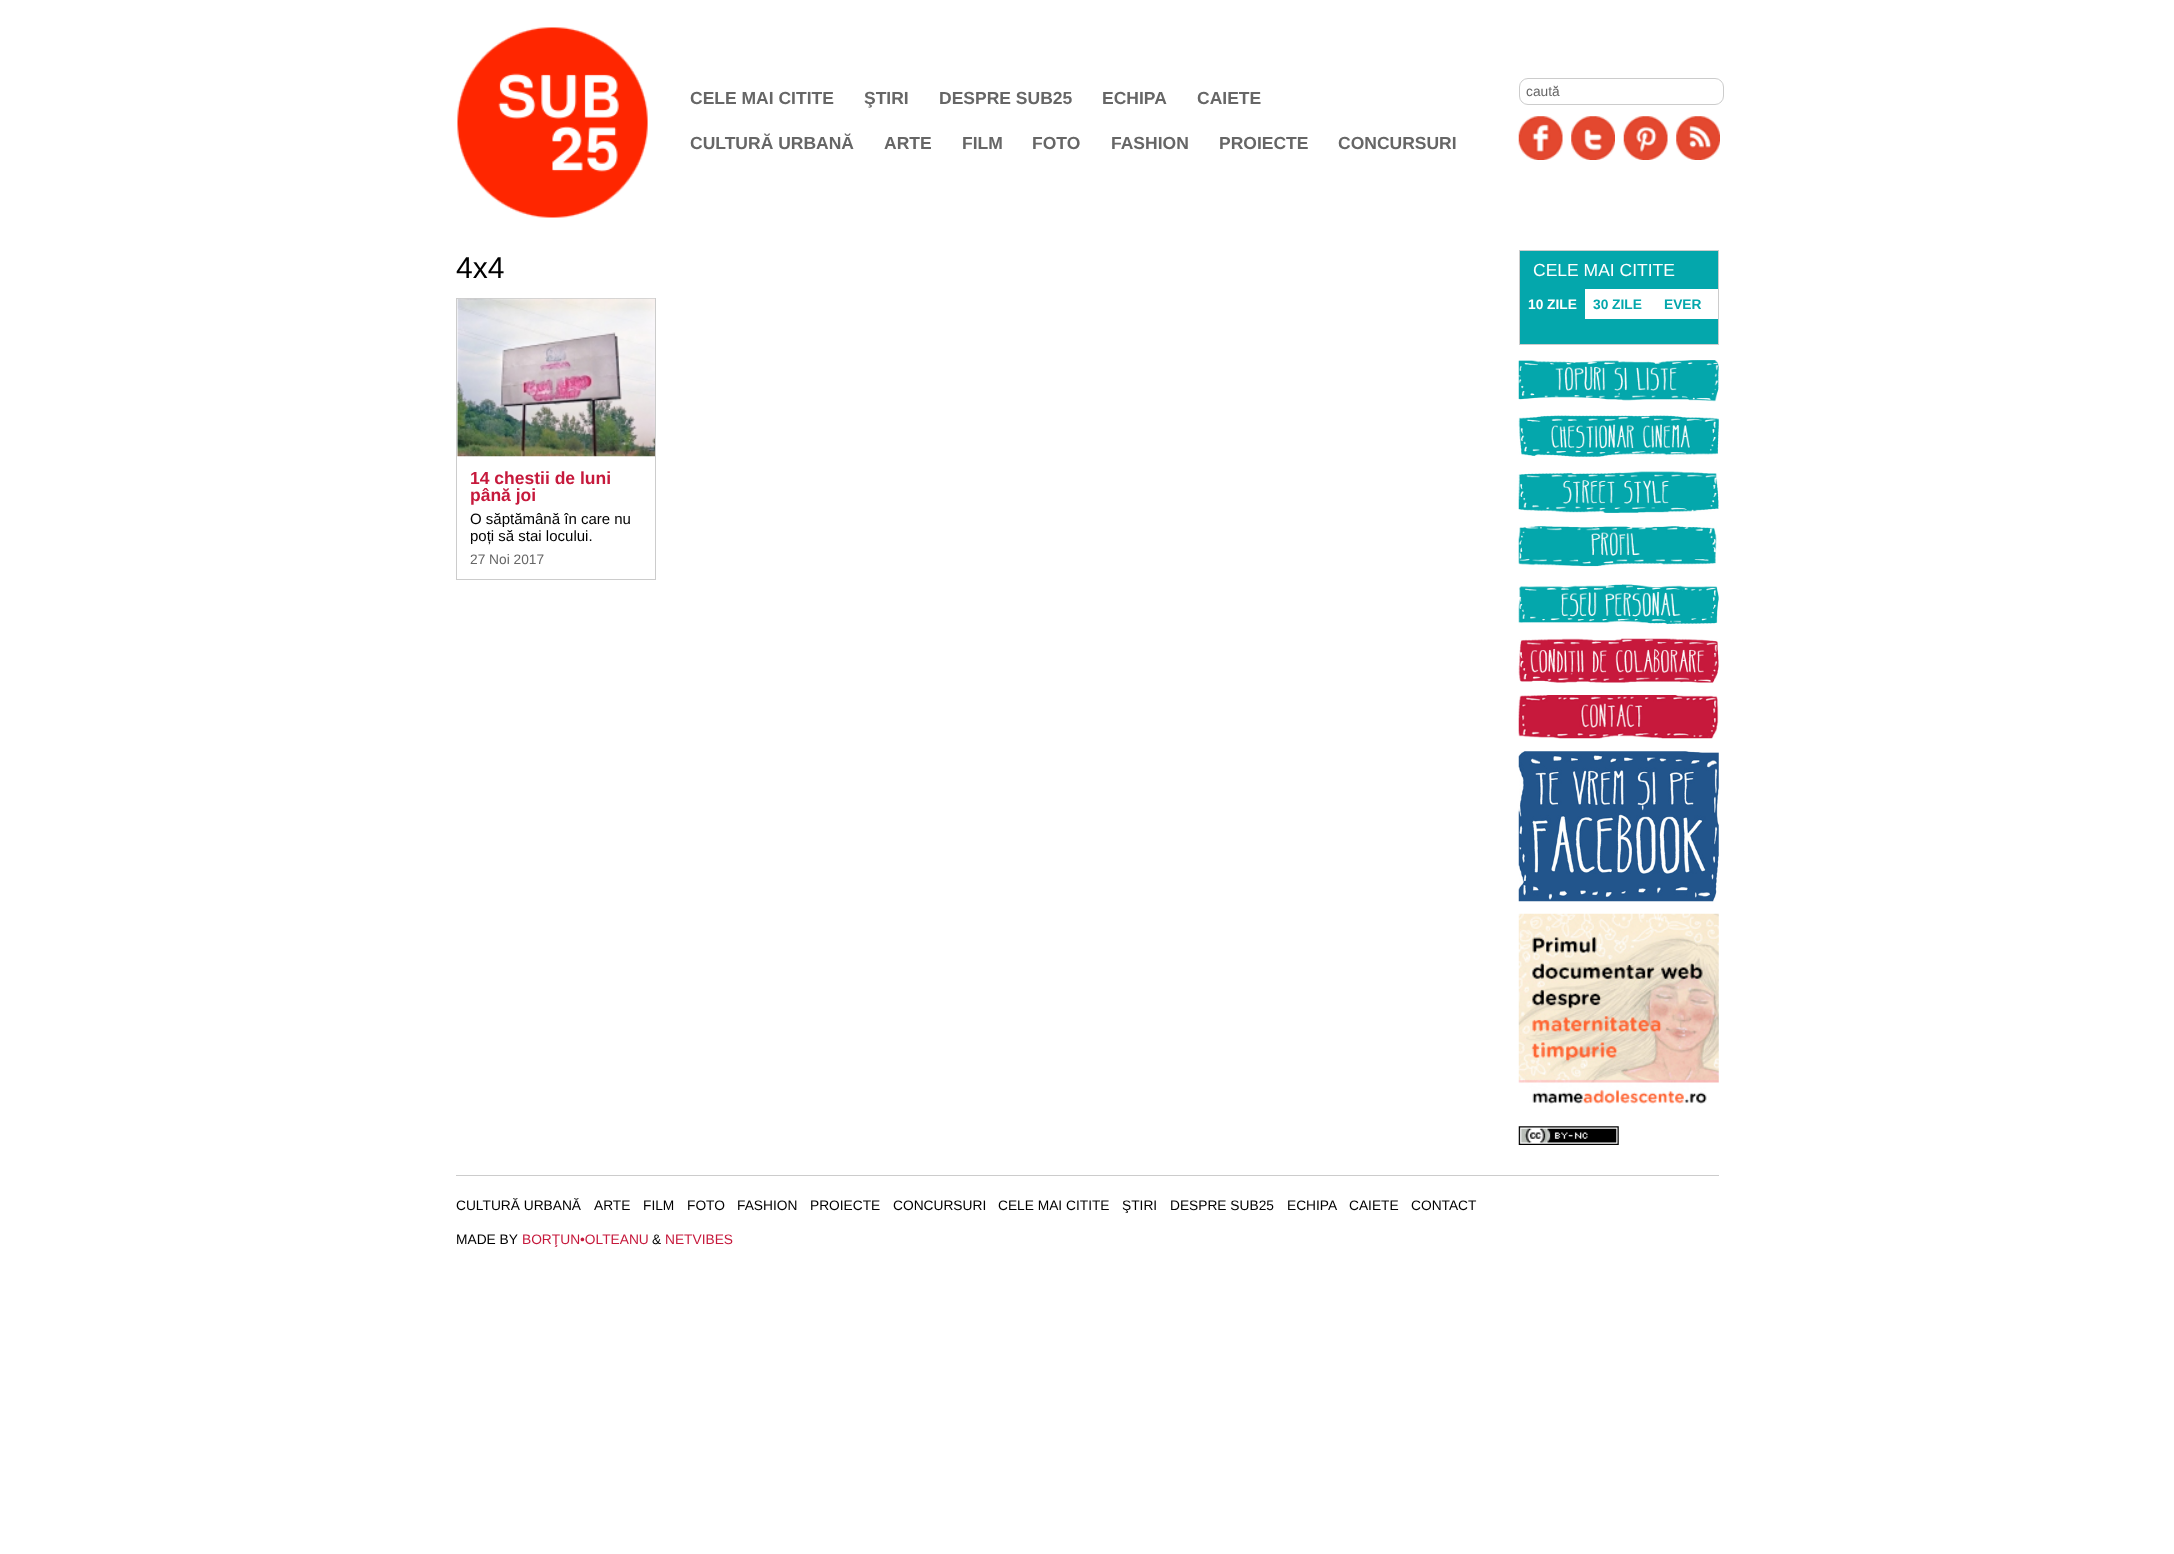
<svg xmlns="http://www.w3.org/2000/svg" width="2174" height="1554">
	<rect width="100%" height="100%" fill="#FFFFFF" />
	<image x="457" y="27" width="191" height="191" href="assets/img1.png" />
	<g font-family="Liberation Sans" font-size="17.5" font-weight="700" fill="#666666">
		<text x="690" y="104">CELE MAI CITITE</text>
		<text x="864" y="104">ŞTIRI</text>
		<text x="939" y="104">DESPRE SUB25</text>
		<text x="1102" y="104">ECHIPA</text>
		<text x="1197" y="104">CAIETE</text>
		<text x="690" y="149">CULTURĂ URBANĂ</text>
		<text x="884" y="149">ARTE</text>
		<text x="962" y="149">FILM</text>
		<text x="1032" y="149">FOTO</text>
		<text x="1111" y="149">FASHION</text>
		<text x="1219" y="149">PROIECTE</text>
		<text x="1338" y="149">CONCURSURI</text>
	</g>
	<rect x="1519.5" y="78.5" width="204" height="26" rx="8.5" fill="none" stroke="#CCCCCC" />
	<text x="1526" y="96" font-family="Liberation Sans" font-size="13.75" fill="#666666">caută</text>
	<image x="1518" y="116" width="45" height="44" href="assets/img2.png" />
	<image x="1571" y="116" width="44" height="44" href="assets/img3.png" />
	<image x="1623" y="116" width="45" height="44" href="assets/img4.png" />
	<image x="1676" y="116" width="44" height="44" href="assets/img5.png" />
	<text x="456" y="278" font-family="Liberation Sans" font-size="30" fill="#000000">4x4</text>
	<rect x="456.5" y="298.5" width="199" height="281" fill="none" stroke="#CCCCCC" />
	<image x="457" y="298" width="198" height="159" href="assets/img6.png" />
	<g font-family="Liberation Sans" font-size="17.5" font-weight="700" fill="#C6193C">
		<text x="470" y="484">14 chestii de luni</text>
		<text x="470" y="501">până joi</text>
	</g>
	<g font-family="Liberation Sans" font-size="15" fill="#000000">
		<text x="470" y="524">O săptămână în care nu</text>
		<text x="470" y="541">poți să stai locului.</text>
	</g>
	<text x="470" y="564" font-family="Liberation Sans" font-size="13.75" fill="#666666">27 Noi 2017</text>
	<rect x="1519.5" y="250.5" width="199" height="94" fill="#04A7AC" stroke="#CCCCCC" />
	<text x="1533" y="276" font-family="Liberation Sans" font-size="17.5" fill="#FFFFFF">CELE MAI CITITE</text>
	<rect x="1585" y="289" width="133" height="30" fill="#FFFFFF" />
	<text x="1528" y="309" font-family="Liberation Sans" font-size="13.75" font-weight="700" fill="#FFFFFF">10 ZILE</text>
	<g font-family="Liberation Sans" font-size="13.75" font-weight="700" fill="#04A7AC">
		<text x="1593" y="309">30 ZILE</text>
		<text x="1664" y="309">EVER</text>
	</g>
	<image x="1518" y="360" width="201" height="42" href="assets/img7.png" />
	<image x="1518" y="415" width="201" height="42" href="assets/img8.png" />
	<image x="1518" y="471" width="201" height="42" href="assets/img9.png" />
	<image x="1518" y="526" width="199" height="41" href="assets/img10.png" />
	<image x="1518" y="584" width="201" height="41" href="assets/img11.png" />
	<image x="1518" y="638" width="201" height="45" href="assets/img12.png" />
	<image x="1518" y="695" width="201" height="44" href="assets/img13.png" />
	<image x="1518" y="751" width="201" height="151" href="assets/img14.png" />
	<image x="1518" y="913" width="201" height="191" href="assets/img15.png" />
	<image x="1518" y="1126" width="101" height="19" href="assets/img16.png" />
	<rect x="456" y="1175" width="1263" height="1" fill="#CCCCCC" />
	<g font-family="Liberation Sans" font-size="13.75" fill="#000000">
		<text x="456" y="1210">CULTURĂ URBANĂ</text>
		<text x="594" y="1210">ARTE</text>
		<text x="643" y="1210">FILM</text>
		<text x="687" y="1210">FOTO</text>
		<text x="737" y="1210">FASHION</text>
		<text x="810" y="1210">PROIECTE</text>
		<text x="893" y="1210">CONCURSURI</text>
		<text x="998" y="1210">CELE MAI CITITE</text>
		<text x="1122" y="1210">ŞTIRI</text>
		<text x="1170" y="1210">DESPRE SUB25</text>
		<text x="1287" y="1210">ECHIPA</text>
		<text x="1349" y="1210">CAIETE</text>
		<text x="1411" y="1210">CONTACT</text>
		<text x="456" y="1244">MADE BY</text>
	</g>
	<text x="522" y="1244" font-family="Liberation Sans" font-size="13.75" fill="#C6193C">BORŢUN•OLTEANU</text>
	<text x="652" y="1244" font-family="Liberation Sans" font-size="13.75" fill="#000000">&amp;</text>
	<text x="665" y="1244" font-family="Liberation Sans" font-size="13.75" fill="#C6193C">NETVIBES</text>
</svg>
